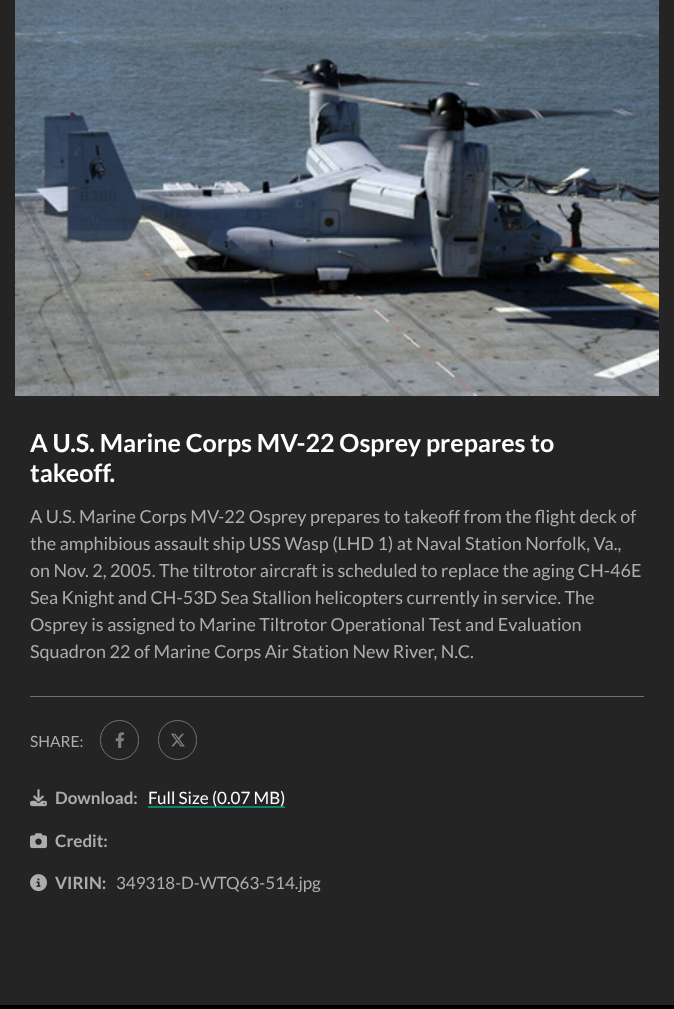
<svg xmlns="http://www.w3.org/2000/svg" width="674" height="1009">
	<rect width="100%" height="100%" fill="#000000" />
	<rect x="0" y="0" width="674" height="1005" fill="#242424" />
	<image x="15" y="0" width="644" height="396" href="assets/img1.png" />
	<g font-family="Lato" font-size="25.05" font-weight="700" fill="#FFFFFF">
		<text x="30" y="452">A U.S. Marine Corps MV-22 Osprey prepares to</text>
		<text x="30" y="482">takeoff.</text>
	</g>
	<g font-family="Lato" font-size="18" fill="#ADADAD">
		<text x="30" y="523">A U.S. Marine Corps MV-22 Osprey prepares to takeoff from the flight deck of</text>
		<text x="30" y="550">the amphibious assault ship USS Wasp (LHD 1) at Naval Station Norfolk, Va.,</text>
		<text x="30" y="577">on Nov. 2, 2005. The tiltrotor aircraft is scheduled to replace the aging CH-46E</text>
		<text x="30" y="604">Sea Knight and CH-53D Sea Stallion helicopters currently in service. The</text>
		<text x="30" y="631">Osprey is assigned to Marine Tiltrotor Operational Test and Evaluation</text>
		<text x="30" y="658">Squadron 22 of Marine Corps Air Station New River, N.C.</text>
	</g>
	<rect x="30" y="696" width="614" height="1" fill="#717171" />
	<text x="30" y="747" font-family="Lato" font-size="15.5" fill="#ADADAD">SHARE:</text>
	<rect x="100.5" y="720.5" width="38" height="39" rx="19" fill="none" stroke="#717171" />
	<image x="115" y="732" width="10" height="16" href="assets/img2.png" />
	<rect x="158.5" y="720.5" width="38" height="39" rx="19" fill="none" stroke="#717171" />
	<image x="171" y="733" width="14" height="14" href="assets/img3.png" />
	<image x="30" y="789" width="17" height="18" href="assets/img4.png" />
	<text x="55" y="804" font-family="Lato" font-size="17" font-weight="700" fill="#ADADAD">Download:</text>
	<rect x="148" y="806" width="137" height="2" fill="#0A856A" />
	<text x="148" y="804" font-family="Lato" font-size="17" fill="#FFFFFF">Full Size (0.07 MB)</text>
	<image x="30" y="833" width="17" height="16" href="assets/img5.png" />
	<text x="55" y="847" font-family="Lato" font-size="17" font-weight="700" fill="#ADADAD">Credit:</text>
	<image x="30" y="874" width="17" height="18" href="assets/img6.png" />
	<text x="55" y="889" font-family="Lato" font-size="17" font-weight="700" fill="#ADADAD">VIRIN:</text>
	<text x="116" y="889" font-family="Lato" font-size="17" fill="#ADADAD">349318-D-WTQ63-514.jpg</text>
</svg>
